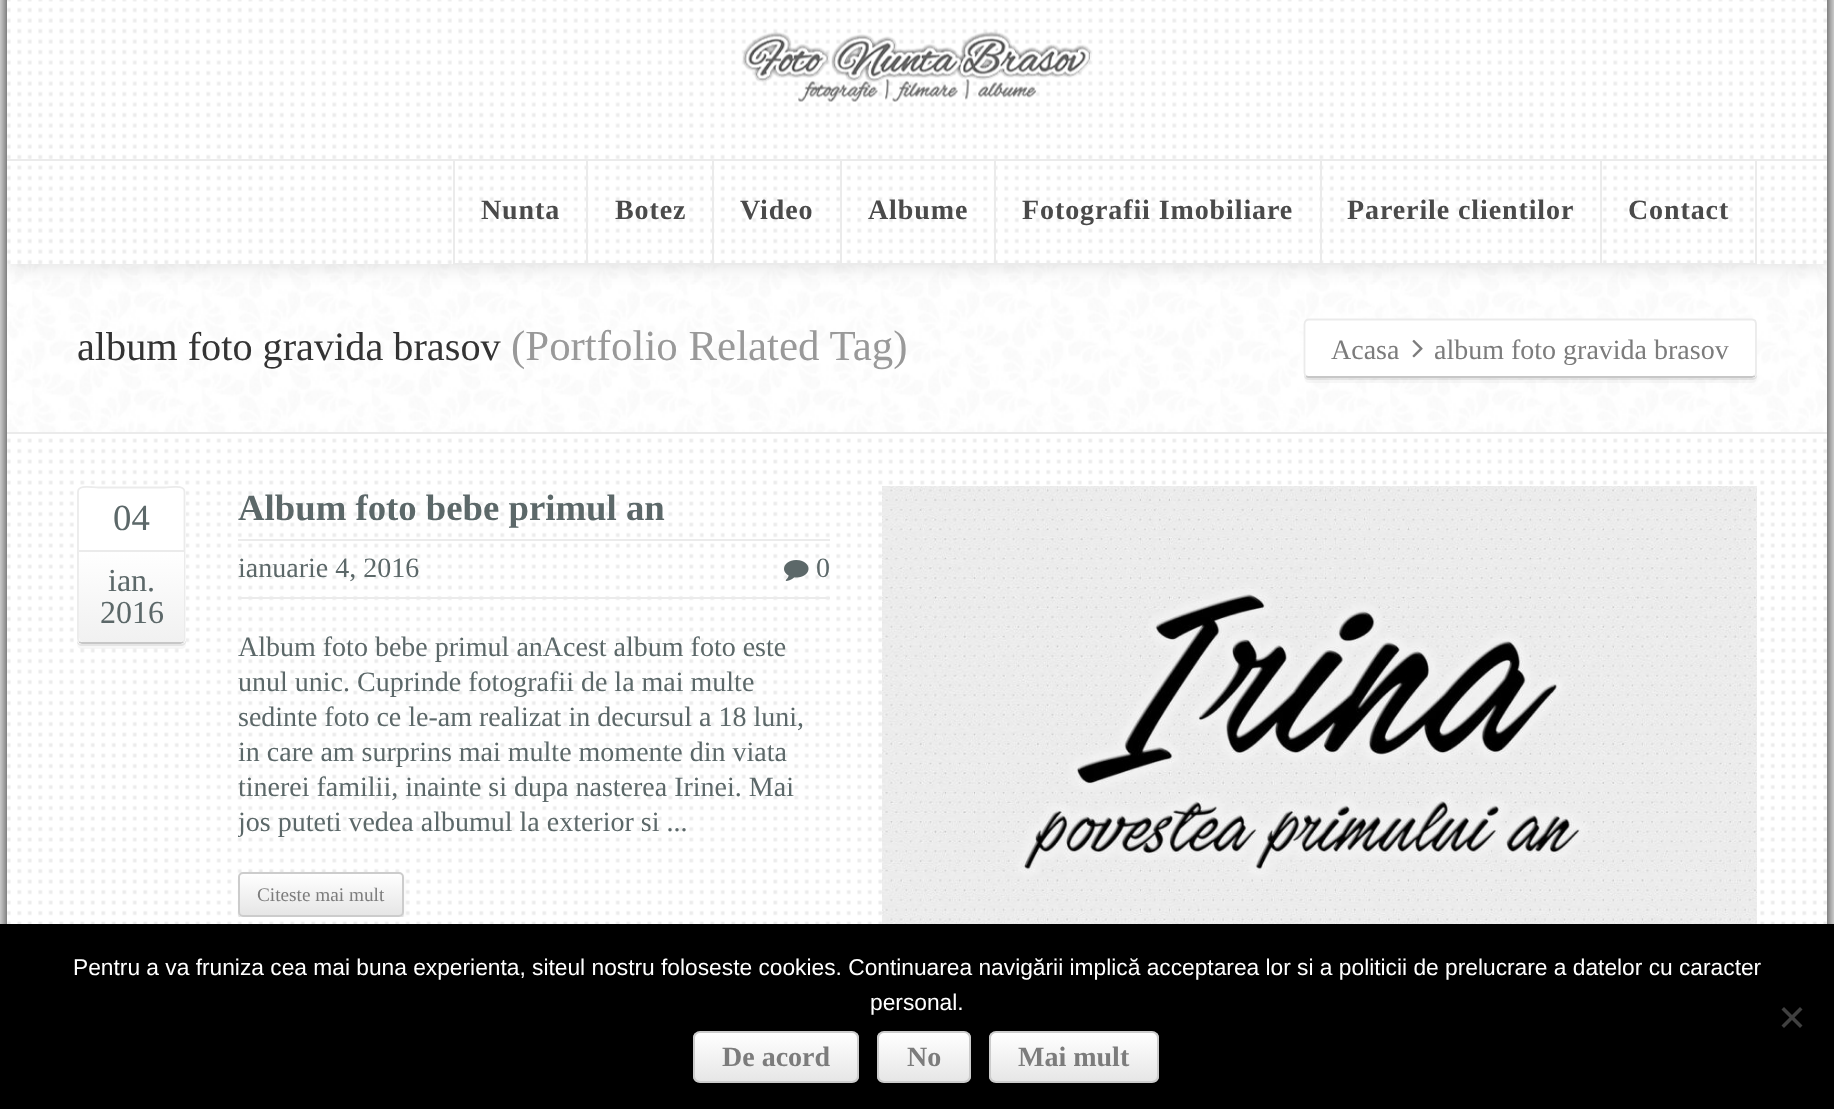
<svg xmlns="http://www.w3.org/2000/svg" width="1834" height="1109">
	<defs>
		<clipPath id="clip1"><rect x="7" y="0" width="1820" height="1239" /></clipPath>
		<linearGradient id="g1" gradientUnits="userSpaceOnUse" x1="131" y1="551" x2="131" y2="642"><stop offset="0" stop-color="#FFFFFF" /><stop offset="1" stop-color="#F1F1F1" /></linearGradient>
		<clipPath id="clip2"><rect x="238" y="487" width="592" height="430" /></clipPath>
		<clipPath id="clip3"><rect x="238" y="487" width="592" height="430" /></clipPath>
		<clipPath id="clip4"><rect x="238" y="872" width="166" height="45" rx="5" /></clipPath>
		<linearGradient id="g2" gradientUnits="userSpaceOnUse" x1="321" y1="873" x2="321" y2="915"><stop offset="0" stop-color="#FFFFFF" /><stop offset="1" stop-color="#E6E6E6" /></linearGradient>
		<clipPath id="clip5"><rect x="693" y="1031" width="166" height="52" rx="7" /></clipPath>
		<linearGradient id="g3" gradientUnits="userSpaceOnUse" x1="776" y1="1033" x2="776" y2="1082"><stop offset="0" stop-color="#FFFFFF" /><stop offset="1" stop-color="#E6E6E6" /></linearGradient>
		<clipPath id="clip6"><rect x="877" y="1031" width="94" height="52" rx="7" /></clipPath>
		<linearGradient id="g4" gradientUnits="userSpaceOnUse" x1="924" y1="1033" x2="924" y2="1082"><stop offset="0" stop-color="#FFFFFF" /><stop offset="1" stop-color="#E6E6E6" /></linearGradient>
		<clipPath id="clip7"><rect x="989" y="1031" width="170" height="52" rx="7" /></clipPath>
		<linearGradient id="g5" gradientUnits="userSpaceOnUse" x1="1074" y1="1033" x2="1074" y2="1082"><stop offset="0" stop-color="#FFFFFF" /><stop offset="1" stop-color="#E6E6E6" /></linearGradient>
	</defs>
	<rect width="100%" height="100%" fill="#FFFFFF" />
	<rect x="7" y="-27" width="1820" height="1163" fill="#000000" filter="blur(9px)" />
	<image x="7" y="434" width="1820" height="490" href="assets/img1.png" />
	<image x="7" y="264" width="1820" height="168" href="assets/img4.png" />
	<g clip-path="url(#clip1)">
		<rect x="7" y="-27" width="1820" height="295" fill="#000000" fill-opacity="0.1" filter="blur(9px)" />
	</g>
	<image x="7" y="0" width="1820" height="264" href="assets/img2.png" />
	<image x="742" y="31" width="350" height="71" href="assets/img3.png" />
	<rect x="7" y="159" width="1820" height="2" fill="#EBEBEB" />
	<rect x="586" y="161" width="2" height="103" fill="#EBEBEB" />
	<rect x="453" y="263" width="135" height="2" fill="#EBEBEB" />
	<rect x="453" y="161" width="2" height="103" fill="#EBEBEB" />
	<text x="481" y="219" font-family="Liberation Serif" font-size="28" font-weight="700" letter-spacing="0.9" fill="#4A4A4A">Nunta</text>
	<rect x="712" y="161" width="2" height="103" fill="#EBEBEB" />
	<rect x="588" y="263" width="126" height="2" fill="#EBEBEB" />
	<text x="615" y="219" font-family="Liberation Serif" font-size="28" font-weight="700" letter-spacing="0.9" fill="#4A4A4A">Botez</text>
	<rect x="840" y="161" width="2" height="103" fill="#EBEBEB" />
	<rect x="714" y="263" width="128" height="2" fill="#EBEBEB" />
	<text x="740" y="219" font-family="Liberation Serif" font-size="28" font-weight="700" letter-spacing="0.9" fill="#4A4A4A">Video</text>
	<rect x="994" y="161" width="2" height="103" fill="#EBEBEB" />
	<rect x="842" y="263" width="154" height="2" fill="#EBEBEB" />
	<text x="868" y="219" font-family="Liberation Serif" font-size="28" font-weight="700" letter-spacing="0.9" fill="#4A4A4A">Albume</text>
	<rect x="1320" y="161" width="2" height="103" fill="#EBEBEB" />
	<rect x="996" y="263" width="325" height="2" fill="#EBEBEB" />
	<text x="1022" y="219" font-family="Liberation Serif" font-size="28" font-weight="700" letter-spacing="0.9" fill="#4A4A4A">Fotografii Imobiliare</text>
	<rect x="1600" y="161" width="2" height="103" fill="#EBEBEB" />
	<rect x="1321" y="263" width="280" height="2" fill="#EBEBEB" />
	<text x="1347" y="219" font-family="Liberation Serif" font-size="28" font-weight="700" letter-spacing="0.9" fill="#4A4A4A">Parerile clientilor</text>
	<rect x="1755" y="161" width="2" height="103" fill="#EBEBEB" />
	<rect x="1601" y="263" width="156" height="2" fill="#EBEBEB" />
	<text x="1628" y="219" font-family="Liberation Serif" font-size="28" font-weight="700" letter-spacing="0.9" fill="#4A4A4A">Contact</text>
	<rect x="7" y="432" width="1820" height="2" fill="#EBEBEB" />
	<text x="77" y="360" font-family="Liberation Serif" font-size="40.25" fill="#333333">album foto gravida brasov</text>
	<text x="511" y="360" font-family="Liberation Serif" font-size="42.9" fill="#999999">(Portfolio Related Tag)</text>
	<path d="M1304 374V375C1304 378 1306 380 1309 380H1752C1755 380 1757 378 1757 375V373C1757 376 1755 378 1752 378H1309C1307 378 1305 376 1304 374Z" fill="#000000" fill-opacity="0.07" />
	<path d="M1304 374C1304 378 1304 383 1309 383H1752C1758 383 1757 377 1757 373C1757 376 1755 378 1752 378H1309C1307 378 1305 376 1304 374Z" fill="#000000" fill-opacity="0.03" />
	<rect x="1304" y="319" width="453" height="59" rx="5" fill="#FFFFFF" />
	<path d="M1755 376L1752 377H1308L1306 376" fill="none" stroke="#000000" stroke-opacity="0.22" stroke-width="1.8" />
	<path d="M1306 376C1305 375 1304.5 374 1304.5 373V324C1304.5 322.5 1305 321.5 1306 320.5C1306.5 320 1308 319.5 1309 319.5H1752C1753 319.5 1754 320 1755 320.5C1755.5 321.5 1756 322.5 1756 324V373C1756 374 1755.5 375 1755 376" fill="none" stroke="#EBEBEB" stroke-width="1.8" />
	<text x="1331" y="359" font-family="Liberation Serif" font-size="28" fill="#7C7C7C">Acasa</text>
	<image x="1412" y="339" width="11" height="19" href="assets/img5.png" />
	<text x="1434" y="359" font-family="Liberation Serif" font-size="28" fill="#7C7C7C">album foto gravida brasov</text>
	<path d="M77 639V641C77 644 79 646 82 646H181C184 646 186 644 186 641V493L185 491L186 639C186 642 183 644 180 644H82C79 644 77 642 77 639Z" fill="#000000" fill-opacity="0.07" />
	<path d="M77 639V644C77 647 79 649 82 649H181C184 649 186 647 186 644V497V495V639C186 642 183 644 180 644H82C79 644 77 642 77 639Z" fill="#000000" fill-opacity="0.03" />
	<rect x="77" y="487" width="109" height="157" rx="5" fill="#FFFFFF" />
	<path d="M183.5 642L180.5 643H82L79 642" fill="none" stroke="#C7C7C7" stroke-width="1.8" />
	<path d="M79 642L78 639V492C78 484.5 90.5 487.5 98.5 487.5H164C172 487.5 184.5 484.5 184.5 492V639L183.5 642" fill="none" stroke="#EBEBEB" stroke-width="1.8" />
	<text x="113" y="530" font-family="Liberation Serif" font-size="36.75" fill="#5C6869">04</text>
	<path d="M79 551H184V637C184 640 182 642 179 642H84C81 642 79 640 79 637Z" fill="url(#g1)" />
	<rect x="79" y="550" width="105" height="2" fill="#EBEBEB" />
	<g font-family="Liberation Serif" font-size="32" fill="#5C6869">
		<text x="108" y="591">ian.</text>
		<text x="100" y="623">2016</text>
	</g>
	<text x="238" y="520" font-family="Liberation Serif" font-size="36.75" font-weight="700" fill="#5C6869">Album foto bebe primul an</text>
	<rect x="238" y="539" width="592" height="2" fill="#EBEBEB" />
	<rect x="238" y="597" width="592" height="2" fill="#EBEBEB" />
	<text x="238" y="577" font-family="Liberation Serif" font-size="28" fill="#5C6869">ianuarie 4, 2016</text>
	<image x="784" y="560" width="25" height="21" href="assets/img6.png" />
	<g font-family="Liberation Serif" font-size="28" fill="#5C6869">
		<text x="816" y="577">0</text>
		<text x="238" y="656">Album foto bebe primul anAcest album foto este</text>
		<text x="238" y="691">unul unic. Cuprinde fotografii de la mai multe</text>
		<text x="238" y="726">sedinte foto ce le-am realizat in decursul a 18 luni,</text>
		<text x="238" y="761">in care am surprins mai multe momente din viata</text>
		<text x="238" y="796">tinerei familii, inainte si dupa nasterea Irinei. Mai</text>
	</g>
	<g clip-path="url(#clip2)">
		<text x="238" y="831" font-family="Liberation Serif" font-size="28" fill="#5C6869">jos puteti vedea albumul la exterior si ...</text>
		<path d="M238 912V914C238 917 240 919 243 919H399C402 919 404 917 404 914V913C403 915 401 917 399 917H243C240 917 238 915 238 912Z" fill="#000000" fill-opacity="0.08" />
	</g>
	<g clip-path="url(#clip3)">
		<rect x="238" y="875" width="166" height="46" rx="5" fill="#000000" fill-opacity="0.05" filter="blur(2px)" />
	</g>
	<g clip-path="url(#clip4)">
		<rect x="238" y="873" width="166" height="42" fill="url(#g2)" />
	</g>
	<rect x="239" y="873" width="164" height="43" rx="4" fill="none" stroke="#CCCCCC" stroke-width="2" />
	<text x="257" y="901" font-family="Liberation Serif" font-size="19.25" fill="#7C7C7C">Citeste mai mult</text>
	<image x="882" y="486" width="875" height="438" href="assets/img7.png" />
	<rect x="0" y="924" width="1834" height="185" fill="#000000" />
	<g font-family="Liberation Sans" font-size="22.75" fill="#FFFFFF">
		<text x="73" y="975">Pentru a va fruniza cea mai buna experienta, siteul nostru foloseste cookies. Continuarea navigării implică acceptarea lor si a politicii de prelucrare a datelor cu caracter</text>
		<text x="870" y="1010">personal.</text>
	</g>
	<path d="M1800 1007L1802.5 1009.5L1784 1028L1781.5 1025.5Z" fill="#404040" />
	<path d="M1781.5 1009.5L1784 1007L1802.5 1025.5L1800 1028Z" fill="#404040" />
	<g clip-path="url(#clip5)">
		<rect x="693" y="1033" width="166" height="49" fill="url(#g3)" />
	</g>
	<rect x="694" y="1032" width="164" height="50" rx="6" fill="none" stroke="#CCCCCC" stroke-width="2" />
	<text x="722" y="1066" font-family="Liberation Serif" font-size="28" font-weight="700" fill="#7C7C7C">De acord</text>
	<g clip-path="url(#clip6)">
		<rect x="877" y="1033" width="94" height="49" fill="url(#g4)" />
	</g>
	<rect x="878" y="1032" width="92" height="50" rx="6" fill="none" stroke="#CCCCCC" stroke-width="2" />
	<text x="907" y="1066" font-family="Liberation Serif" font-size="28" font-weight="700" fill="#7C7C7C">No</text>
	<g clip-path="url(#clip7)">
		<rect x="989" y="1033" width="170" height="49" fill="url(#g5)" />
	</g>
	<rect x="990" y="1032" width="168" height="50" rx="6" fill="none" stroke="#CCCCCC" stroke-width="2" />
	<text x="1018" y="1066" font-family="Liberation Serif" font-size="28" font-weight="700" fill="#7C7C7C">Mai mult</text>
</svg>
